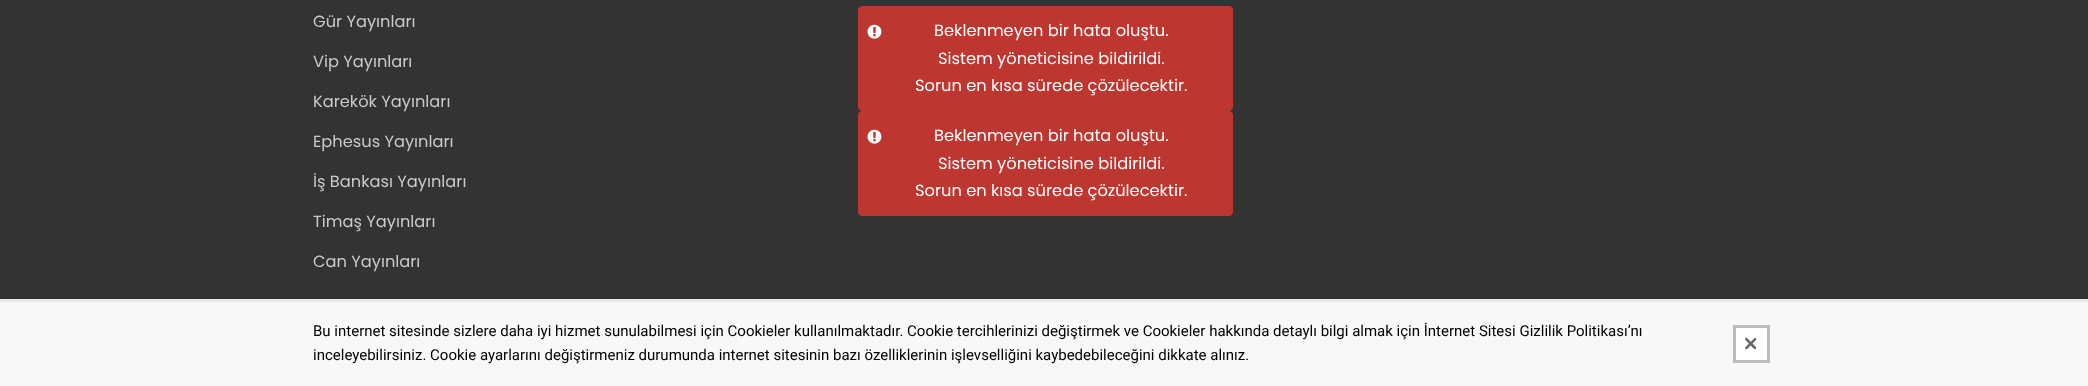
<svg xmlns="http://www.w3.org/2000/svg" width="2088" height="386">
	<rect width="100%" height="100%" fill="#333333" />
	<g font-family="Poppins" font-size="16.25" fill="#C9C9C9">
		<text x="313" y="27">Gür Yayınları</text>
		<text x="313" y="67">Vip Yayınları</text>
		<text x="313" y="107">Karekök Yayınları</text>
		<text x="313" y="147">Ephesus Yayınları</text>
		<text x="313" y="187">İş Bankası Yayınları</text>
		<text x="313" y="227">Timaş Yayınları</text>
		<text x="313" y="267">Can Yayınları</text>
	</g>
	<rect x="858.5" y="6.5" width="374" height="104" rx="3.5" fill="#BD362F" stroke="#BD362F" />
	<image x="867" y="24" width="15" height="15" href="assets/img1.png" />
	<g font-family="Poppins" font-size="16.25" fill="#FFFFFF">
		<text x="934" y="36">Beklenmeyen bir hata oluştu.</text>
		<text x="938" y="64">Sistem yöneticisine bildirildi.</text>
		<text x="915" y="91">Sorun en kısa sürede çözülecektir.</text>
	</g>
	<rect x="858.5" y="111.5" width="374" height="104" rx="3.5" fill="#BD362F" stroke="#BD362F" />
	<image x="867" y="129" width="15" height="15" href="assets/img1.png" />
	<g font-family="Poppins" font-size="16.25" fill="#FFFFFF">
		<text x="934" y="141">Beklenmeyen bir hata oluştu.</text>
		<text x="938" y="169">Sistem yöneticisine bildirildi.</text>
		<text x="915" y="196">Sorun en kısa sürede çözülecektir.</text>
	</g>
	<rect x="0" y="302" width="2088" height="84" fill="#F8F8F8" />
	<rect x="0" y="299" width="2088" height="3" fill="#E8E8E8" />
	<text x="313" y="336" font-family="Roboto" font-size="15" fill="#000000">Bu internet sitesinde sizlere daha iyi hizmet sunulabilmesi için Cookieler kullanılmaktadır. Cookie tercihlerinizi değiştirmek ve Cookieler hakkında detaylı bilgi almak için İnternet Sitesi Gizlilik Politikası’nı</text>
	<rect x="1734.5" y="326.5" width="34" height="35" fill="#FFFFFF" stroke="#BDBDBD" stroke-width="3" />
	<path d="M1747 338L1756 347V348.5C1755.5 350.5 1753.5 348 1752.5 347.5L1748.5 343C1747.5 342 1744 339.5 1745.5 338C1746 337.5 1746.5 337.5 1747 338Z" fill="#696969" />
	<path d="M1745.5 347L1754.5 338H1755.5C1757.5 339 1755 341 1754.5 341.5L1750 346C1749.5 346.5 1747 350.5 1745.5 349C1745 348.5 1745 347.5 1745.5 347Z" fill="#696969" />
	<text x="313" y="360" font-family="Roboto" font-size="15" fill="#000000">inceleyebilirsiniz. Cookie ayarlarını değiştirmeniz durumunda internet sitesinin bazı özelliklerinin işlevselliğini kaybedebileceğini dikkate alınız.</text>
</svg>
